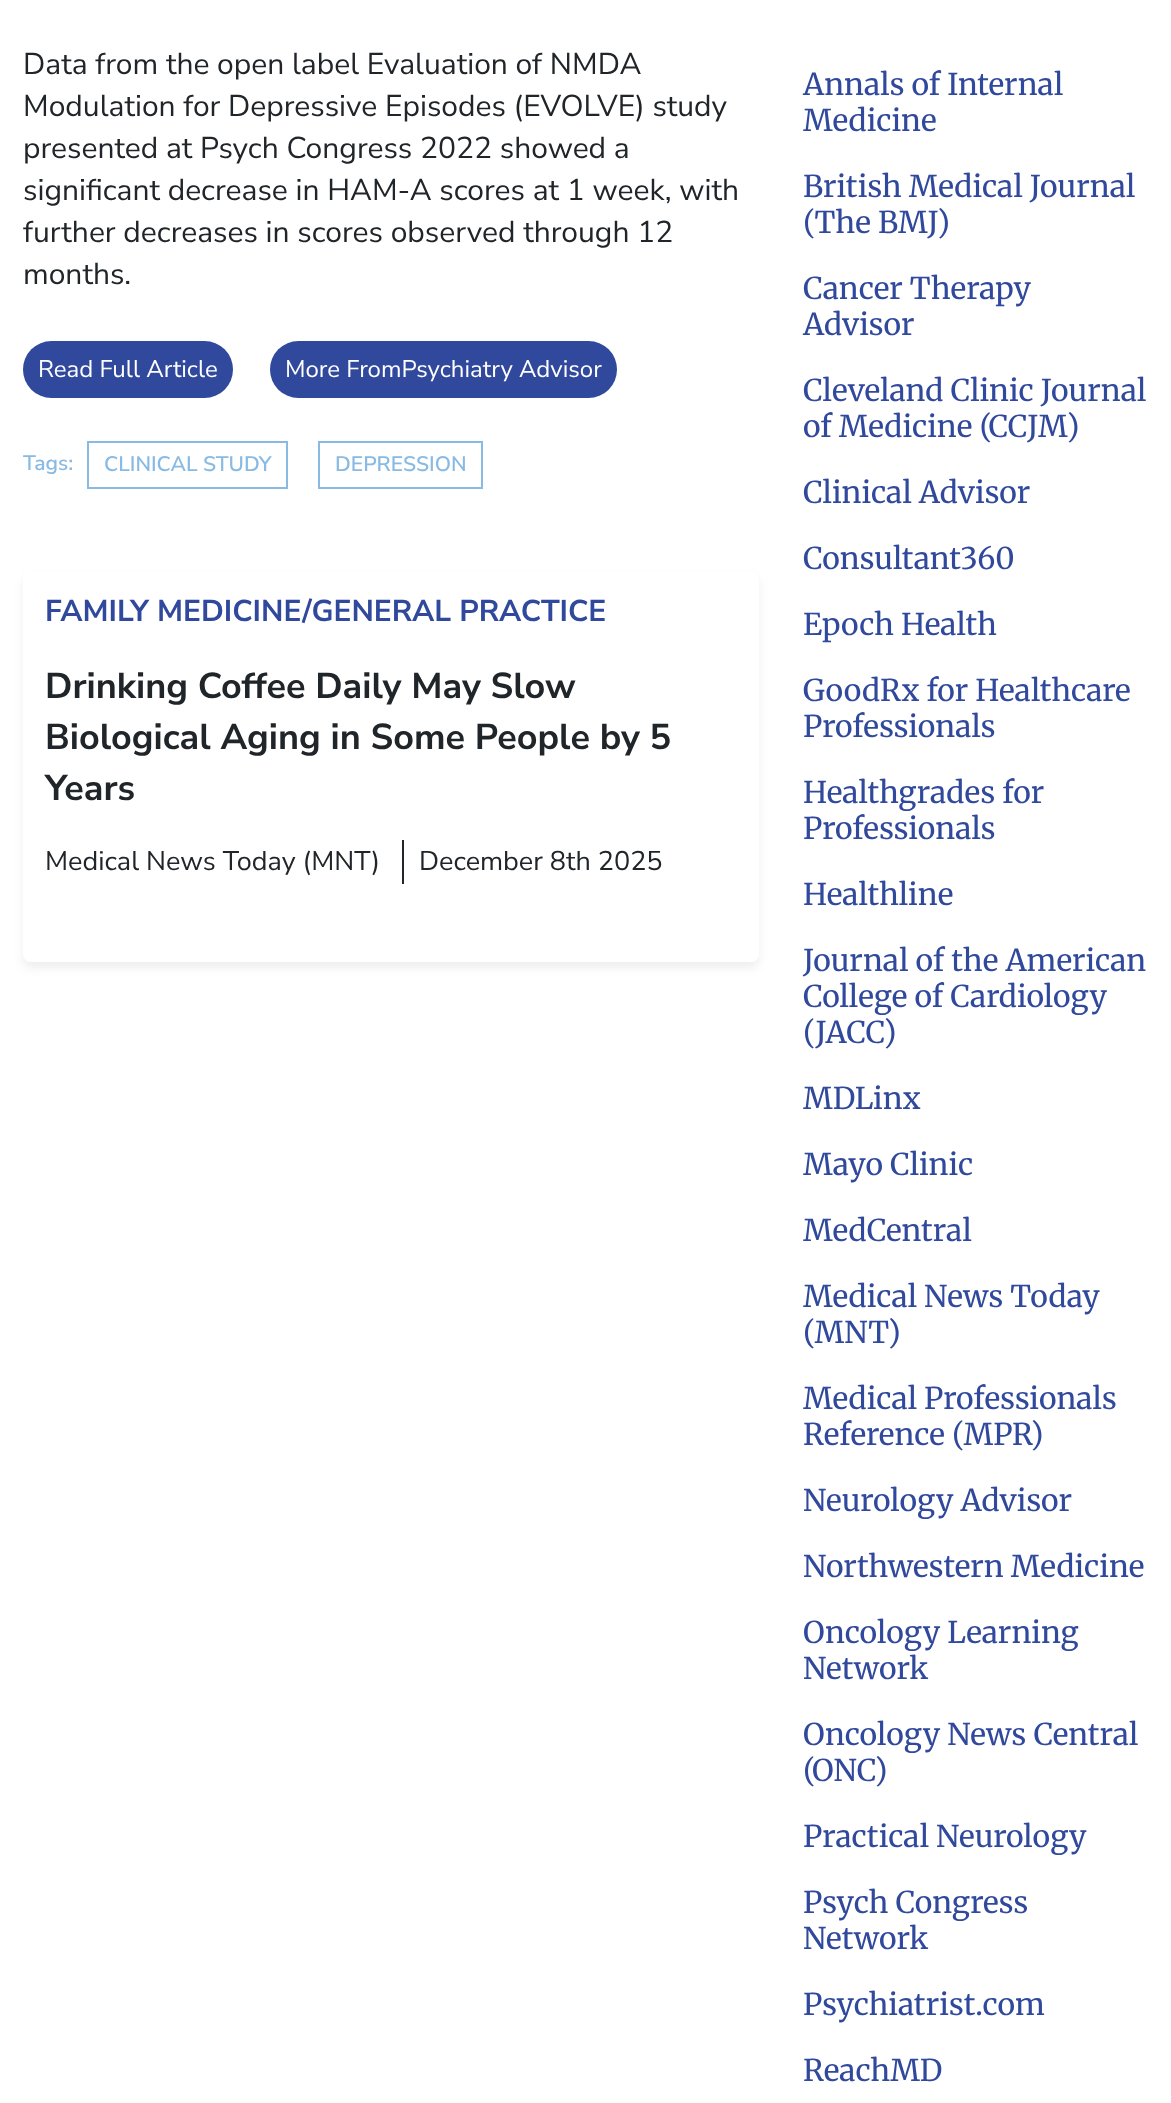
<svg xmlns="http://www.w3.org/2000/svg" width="1171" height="2103">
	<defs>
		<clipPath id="clip1"><path d="M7 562H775V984H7ZM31 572H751C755.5 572 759 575.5 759 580V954C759 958.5 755.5 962 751 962H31C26.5 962 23 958.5 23 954V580C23 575.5 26.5 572 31 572Z" clip-rule="evenodd" /></clipPath>
	</defs>
	<rect width="100%" height="100%" fill="#FFFFFF" />
	<g font-family="Nunito Sans" font-size="30" fill="#202529">
		<text x="23" y="74">Data from the open label Evaluation of NMDA</text>
		<text x="23" y="116">Modulation for Depressive Episodes (EVOLVE) study</text>
		<text x="23" y="158">presented at Psych Congress 2022 showed a</text>
		<text x="23" y="200">significant decrease in HAM-A scores at 1 week, with</text>
		<text x="23" y="242">further decreases in scores observed through 12</text>
		<text x="23" y="284">months.</text>
	</g>
	<rect x="23" y="341" width="210" height="57" rx="28.5" fill="#30499C" />
	<text x="38" y="377" font-family="Nunito Sans" font-size="24" fill="#FFFFFF">Read Full Article</text>
	<rect x="270" y="341" width="347" height="57" rx="28.5" fill="#30499C" />
	<text x="285" y="377" font-family="Nunito Sans" font-size="24" fill="#FFFFFF">More FromPsychiatry Advisor</text>
	<text x="23" y="470" font-family="Nunito Sans" font-size="21" font-weight="600" fill="#89BAE4">Tags:</text>
	<rect x="88" y="442" width="199" height="46" fill="none" stroke="#89BAE4" stroke-width="2" />
	<text x="104" y="471" font-family="Nunito Sans" font-size="21" font-weight="600" fill="#89BAE4">CLINICAL STUDY</text>
	<rect x="319" y="442" width="163" height="46" fill="none" stroke="#89BAE4" stroke-width="2" />
	<text x="335" y="471" font-family="Nunito Sans" font-size="21" font-weight="600" fill="#89BAE4">DEPRESSION</text>
	<g clip-path="url(#clip1)">
		<rect x="23" y="578" width="736" height="390" rx="8" fill="#C0BDBD" fill-opacity="0.25" filter="blur(5px)" />
	</g>
	<text x="45" y="621" font-family="Nunito Sans" font-size="30" font-weight="700" fill="#30499C">FAMILY MEDICINE/GENERAL PRACTICE</text>
	<g font-family="Nunito Sans" font-size="36" font-weight="700" fill="#202529">
		<text x="45" y="698">Drinking Coffee Daily May Slow</text>
		<text x="45" y="749">Biological Aging in Some People by 5</text>
		<text x="45" y="800">Years</text>
	</g>
	<text x="45" y="870" font-family="Nunito Sans" font-size="27" fill="#202529">Medical News Today (MNT)</text>
	<rect x="402" y="840" width="2" height="44" fill="#202529" />
	<text x="419" y="870" font-family="Nunito Sans" font-size="27" fill="#202529">December 8th 2025</text>
	<g font-family="Merriweather" font-size="30" fill="#30499C">
		<text x="803" y="95">Annals of Internal</text>
		<text x="803" y="131">Medicine</text>
		<text x="803" y="197">British Medical Journal</text>
		<text x="803" y="233">(The BMJ)</text>
		<text x="803" y="299">Cancer Therapy</text>
		<text x="803" y="335">Advisor</text>
		<text x="803" y="401">Cleveland Clinic Journal</text>
		<text x="803" y="437">of Medicine (CCJM)</text>
		<text x="803" y="503">Clinical Advisor</text>
		<text x="803" y="569">Consultant360</text>
		<text x="803" y="635">Epoch Health</text>
		<text x="803" y="701">GoodRx for Healthcare</text>
		<text x="803" y="737">Professionals</text>
		<text x="803" y="803">Healthgrades for</text>
		<text x="803" y="839">Professionals</text>
		<text x="803" y="905">Healthline</text>
		<text x="803" y="971">Journal of the American</text>
		<text x="803" y="1007">College of Cardiology</text>
		<text x="803" y="1043">(JACC)</text>
		<text x="803" y="1109">MDLinx</text>
		<text x="803" y="1175">Mayo Clinic</text>
		<text x="803" y="1241">MedCentral</text>
		<text x="803" y="1307">Medical News Today</text>
		<text x="803" y="1343">(MNT)</text>
		<text x="803" y="1409">Medical Professionals</text>
		<text x="803" y="1445">Reference (MPR)</text>
		<text x="803" y="1511">Neurology Advisor</text>
		<text x="803" y="1577">Northwestern Medicine</text>
		<text x="803" y="1643">Oncology Learning</text>
		<text x="803" y="1679">Network</text>
		<text x="803" y="1745">Oncology News Central</text>
		<text x="803" y="1781">(ONC)</text>
		<text x="803" y="1847">Practical Neurology</text>
		<text x="803" y="1913">Psych Congress</text>
		<text x="803" y="1949">Network</text>
		<text x="803" y="2015">Psychiatrist.com</text>
		<text x="803" y="2081">ReachMD</text>
	</g>
</svg>
